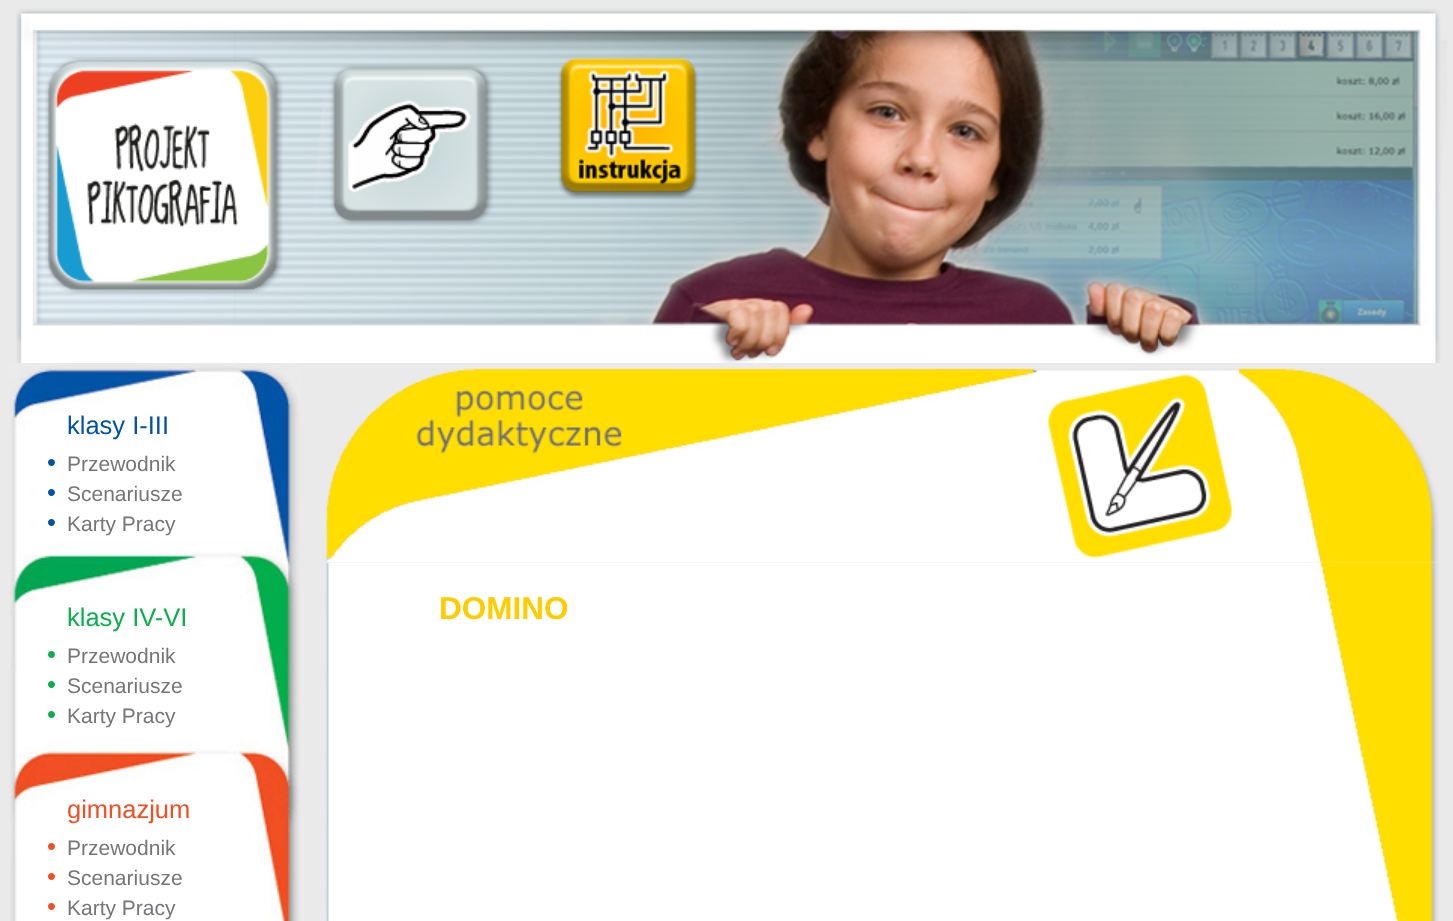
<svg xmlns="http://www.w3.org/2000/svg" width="1453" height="921">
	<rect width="100%" height="100%" fill="#EAEAEA" />
	<image x="16" y="9" width="1431" height="354" href="assets/img1.png" />
	<image x="45" y="57" width="238" height="237" href="assets/img2.png" />
	<image x="558" y="58" width="141" height="141" href="assets/img3.png" />
	<image x="8" y="363" width="292" height="558" href="assets/img4.png" />
	<g font-family="Liberation Sans" font-size="25.5" fill="#0054A6">
		<text x="67" y="434">klasy I-III</text>
		<text x="47" y="471">•</text>
	</g>
	<text x="67" y="471" font-family="Liberation Sans" font-size="21" fill="#75767A">Przewodnik</text>
	<text x="47" y="501" font-family="Liberation Sans" font-size="25.5" fill="#0054A6">•</text>
	<text x="67" y="501" font-family="Liberation Sans" font-size="21" fill="#75767A">Scenariusze</text>
	<text x="47" y="531" font-family="Liberation Sans" font-size="25.5" fill="#0054A6">•</text>
	<text x="67" y="531" font-family="Liberation Sans" font-size="21" fill="#75767A">Karty Pracy</text>
	<g font-family="Liberation Sans" font-size="25.5" fill="#0BAF4D">
		<text x="67" y="626">klasy IV-VI</text>
		<text x="47" y="663">•</text>
	</g>
	<text x="67" y="663" font-family="Liberation Sans" font-size="21" fill="#75767A">Przewodnik</text>
	<text x="47" y="693" font-family="Liberation Sans" font-size="25.5" fill="#0BAF4D">•</text>
	<text x="67" y="693" font-family="Liberation Sans" font-size="21" fill="#75767A">Scenariusze</text>
	<text x="47" y="723" font-family="Liberation Sans" font-size="25.5" fill="#0BAF4D">•</text>
	<text x="67" y="723" font-family="Liberation Sans" font-size="21" fill="#75767A">Karty Pracy</text>
	<g font-family="Liberation Sans" font-size="25.5" fill="#F04E23">
		<text x="67" y="818">gimnazjum</text>
		<text x="47" y="855">•</text>
	</g>
	<text x="67" y="855" font-family="Liberation Sans" font-size="21" fill="#75767A">Przewodnik</text>
	<text x="47" y="885" font-family="Liberation Sans" font-size="25.5" fill="#F04E23">•</text>
	<text x="67" y="885" font-family="Liberation Sans" font-size="21" fill="#75767A">Scenariusze</text>
	<text x="47" y="915" font-family="Liberation Sans" font-size="25.5" fill="#F04E23">•</text>
	<text x="67" y="915" font-family="Liberation Sans" font-size="21" fill="#75767A">Karty Pracy</text>
	<image x="325" y="563" width="995" height="358" href="assets/img5.png" />
	<image x="325" y="368" width="1114" height="195" href="assets/img6.png" />
	<text x="439" y="619" font-family="Liberation Sans" font-size="31.5" font-weight="700" fill="#FFCC00">DOMINO</text>
	<image x="1320" y="562" width="119" height="359" href="assets/img7.png" />
</svg>
